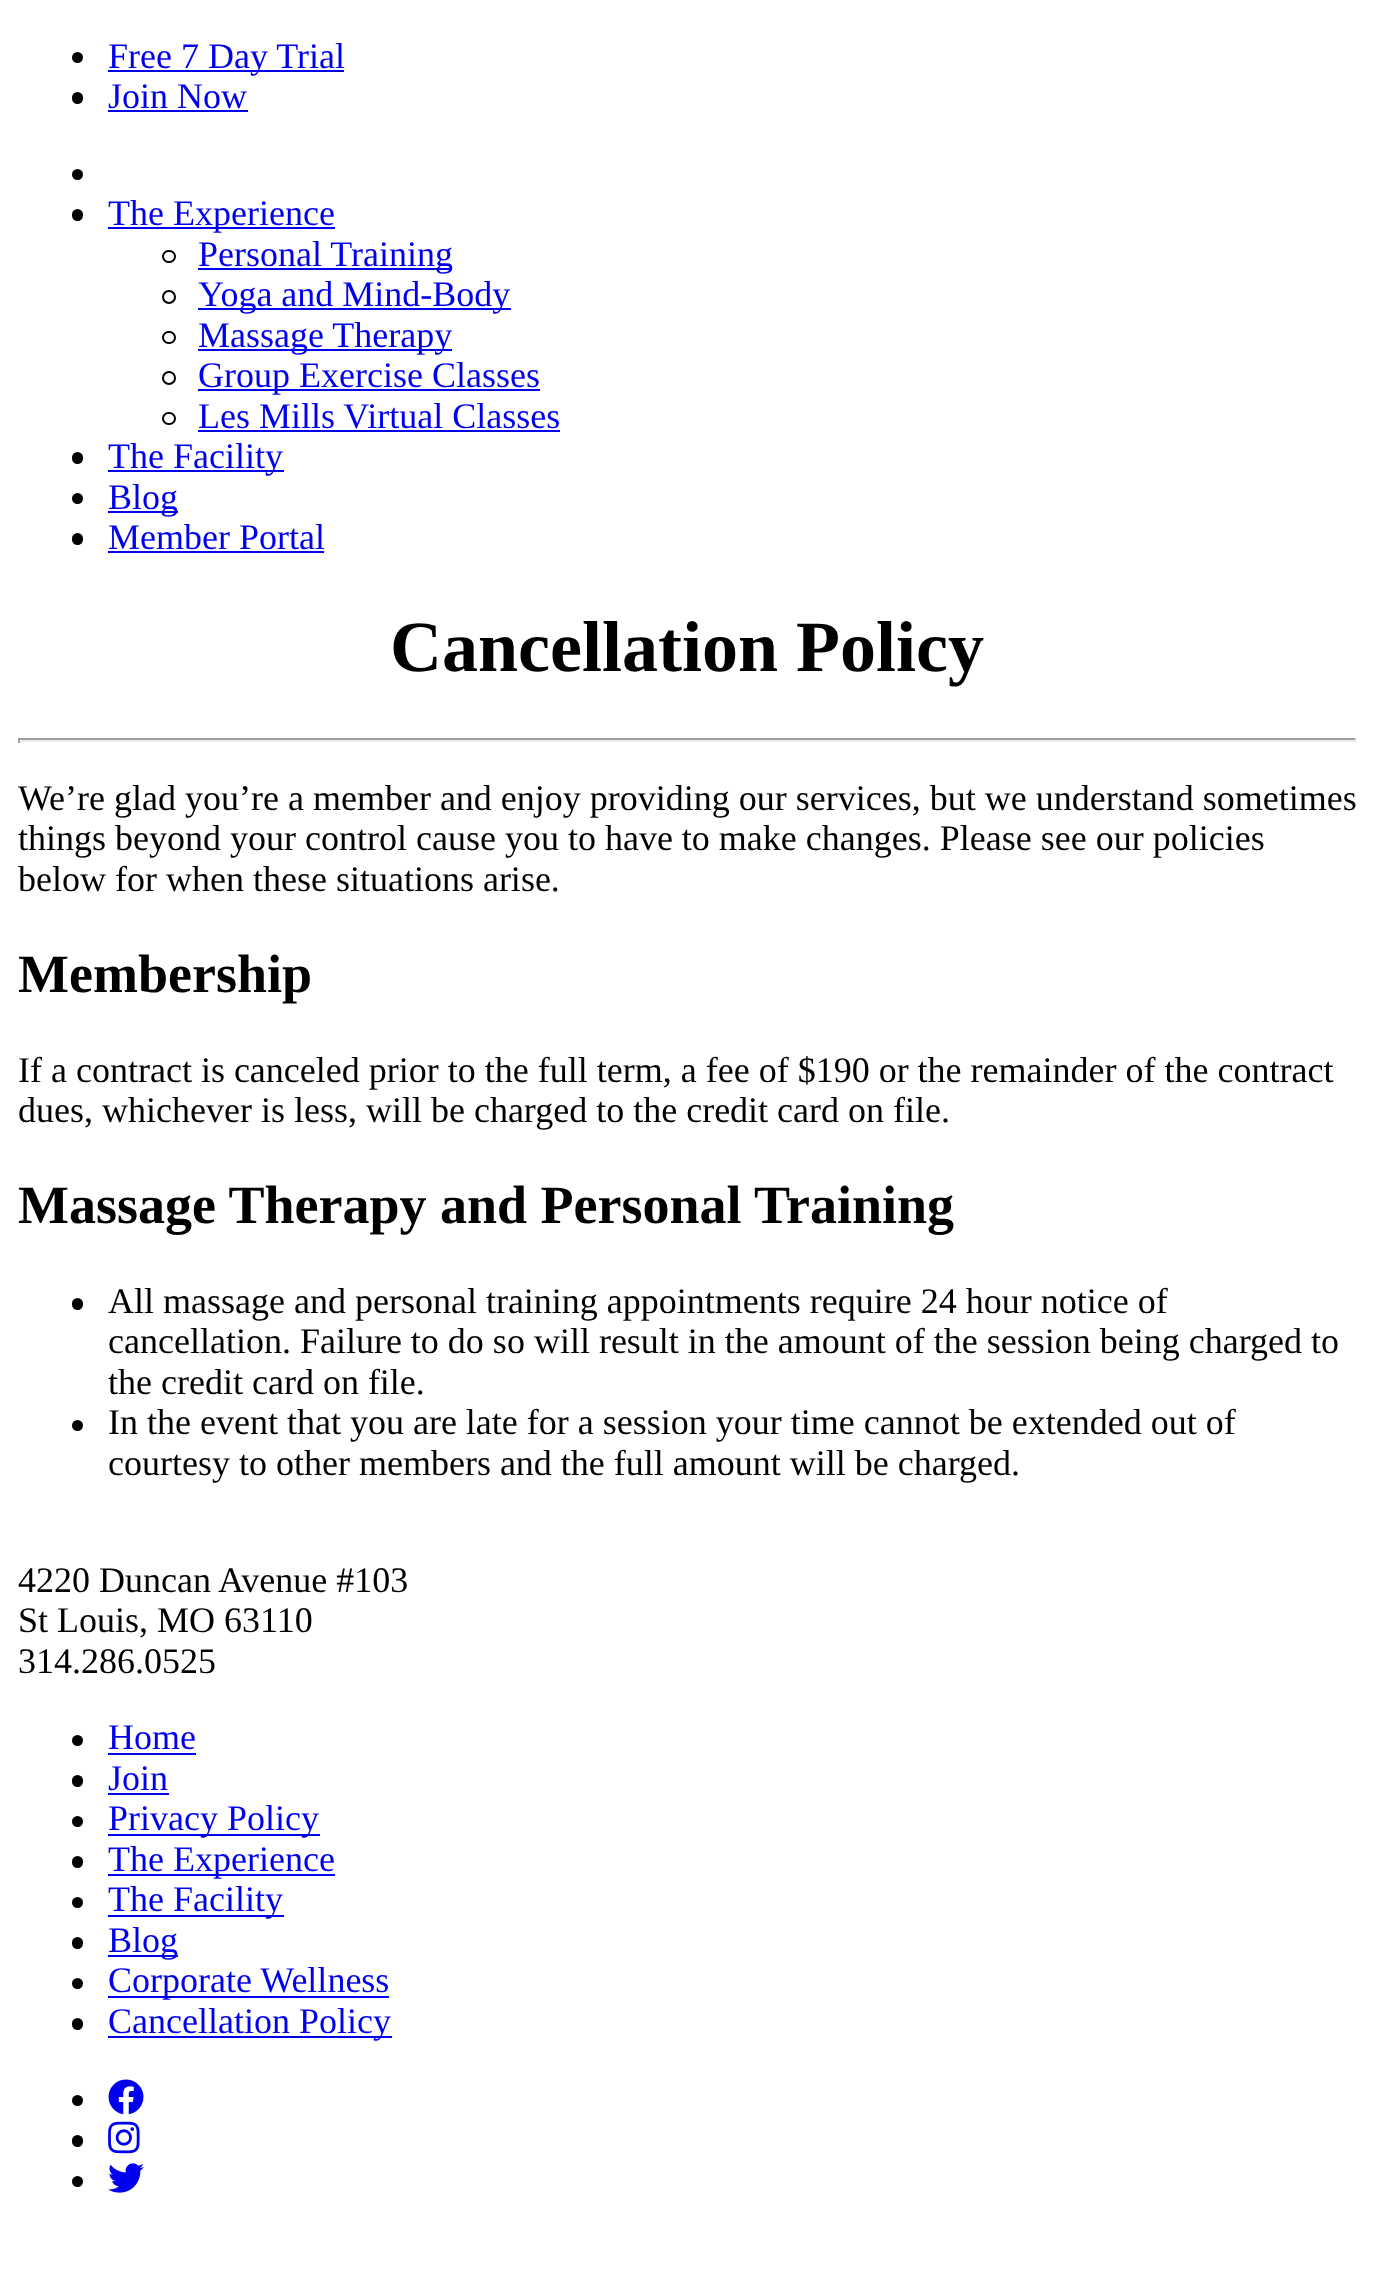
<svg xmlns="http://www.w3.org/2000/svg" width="1373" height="2293">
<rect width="100%" height="100%" fill="#fff"/>
<circle cx="77.5" cy="57.5" r="5.5" fill="#000"/>
<rect x="108" y="70" width="236" height="2" fill="#00e"/>
<text x="108" y="68" style="font-family:Liberation Serif;font-size:36px;fill:#00e">Free 7 Day Trial</text>
<rect x="72" y="92" width="11" height="12" rx="5.5" fill="#000"/>
<text x="108" y="108" style="font-family:Liberation Serif;font-size:36px;fill:#00e">Join Now</text>
<rect x="108" y="110" width="140" height="2" fill="#00e"/>
<circle cx="77.5" cy="174.5" r="5.5" fill="#000"/>
<rect x="72" y="209" width="11" height="12" rx="5.5" fill="#000"/>
<rect x="108" y="227" width="227" height="2" fill="#00e"/>
<text x="108" y="225" style="font-family:Liberation Serif;font-size:36px;fill:#00e">The Experience</text>
<rect x="163" y="251" width="12" height="11" rx="5.5" fill="none" stroke="#000" stroke-width="2"/>
<rect x="198" y="268" width="254" height="2" fill="#00e"/>
<text x="198" y="266" style="font-family:Liberation Serif;font-size:36px;fill:#00e">Personal Training</text>
<circle cx="169" cy="297" r="6" fill="none" stroke="#000" stroke-width="2"/>
<rect x="198" y="308" width="313" height="2" fill="#00e"/>
<text x="198" y="306" style="font-family:Liberation Serif;font-size:36px;fill:#00e">Yoga and Mind-Body</text>
<rect x="163" y="332" width="12" height="11" rx="5.5" fill="none" stroke="#000" stroke-width="2"/>
<rect x="198" y="349" width="254" height="2" fill="#00e"/>
<text x="198" y="347" style="font-family:Liberation Serif;font-size:36px;fill:#00e">Massage Therapy</text>
<circle cx="169" cy="378" r="6" fill="none" stroke="#000" stroke-width="2"/>
<rect x="198" y="389" width="342" height="2" fill="#00e"/>
<text x="198" y="387" style="font-family:Liberation Serif;font-size:36px;fill:#00e">Group Exercise Classes</text>
<rect x="163" y="413" width="12" height="11" rx="5.5" fill="none" stroke="#000" stroke-width="2"/>
<text x="198" y="428" style="font-family:Liberation Serif;font-size:36px;fill:#00e">Les Mills Virtual Classes</text>
<rect x="198" y="430" width="362" height="2" fill="#00e"/>
<rect x="72" y="452" width="11" height="12" rx="5.5" fill="#000"/>
<rect x="108" y="470" width="176" height="2" fill="#00e"/>
<text x="108" y="468" style="font-family:Liberation Serif;font-size:36px;fill:#00e">The Facility</text>
<circle cx="77.5" cy="498.5" r="5.5" fill="#000"/>
<rect x="108" y="511" width="70" height="2" fill="#00e"/>
<text x="108" y="509" style="font-family:Liberation Serif;font-size:36px;fill:#00e">Blog</text>
<rect x="72" y="533" width="11" height="12" rx="5.5" fill="#000"/>
<text x="108" y="549" style="font-family:Liberation Serif;font-size:36px;fill:#00e">Member Portal</text>
<rect x="108" y="551" width="216" height="2" fill="#00e"/>
<text x="390" y="671" style="font-family:Liberation Serif;font-size:72px;font-weight:bold;fill:#000">Cancellation Policy</text>
<rect x="18" y="738" width="1339" height="2" fill="#9f9f9f"/>
<rect x="1355" y="738" width="2" height="5" fill="#eee"/>
<rect x="18" y="740" width="1339" height="2" fill="#eee"/>
<rect x="18" y="738" width="2" height="5" fill="#9f9f9f"/>
<text x="18" y="810" style="font-family:Liberation Serif;font-size:36px;fill:#000">We’re glad you’re a member and enjoy providing our services, but we understand sometimes</text>
<text x="18" y="850" style="font-family:Liberation Serif;font-size:36px;fill:#000">things beyond your control cause you to have to make changes. Please see our policies</text>
<text x="18" y="891" style="font-family:Liberation Serif;font-size:36px;fill:#000">below for when these situations arise.</text>
<text x="18" y="992" style="font-family:Liberation Serif;font-size:54px;font-weight:bold;fill:#000">Membership</text>
<text x="18" y="1082" style="font-family:Liberation Serif;font-size:36px;fill:#000">If a contract is canceled prior to the full term, a fee of $190 or the remainder of the contract</text>
<text x="18" y="1122" style="font-family:Liberation Serif;font-size:36px;fill:#000">dues, whichever is less, will be charged to the credit card on file.</text>
<text x="18" y="1223" style="font-family:Liberation Serif;font-size:54px;font-weight:bold;fill:#000">Massage Therapy and Personal Training</text>
<rect x="72" y="1298" width="11" height="12" rx="5.5" fill="#000"/>
<text x="108" y="1313" style="font-family:Liberation Serif;font-size:36px;fill:#000">All massage and personal training appointments require 24 hour notice of</text>
<text x="108" y="1353" style="font-family:Liberation Serif;font-size:36px;fill:#000">cancellation. Failure to do so will result in the amount of the session being charged to</text>
<text x="108" y="1394" style="font-family:Liberation Serif;font-size:36px;fill:#000">the credit card on file.</text>
<circle cx="77.5" cy="1425.5" r="5.5" fill="#000"/>
<text x="108" y="1434" style="font-family:Liberation Serif;font-size:36px;fill:#000">In the event that you are late for a session your time cannot be extended out of</text>
<text x="108" y="1475" style="font-family:Liberation Serif;font-size:36px;fill:#000">courtesy to other members and the full amount will be charged.</text>
<text x="18" y="1592" style="font-family:Liberation Serif;font-size:36px;fill:#000">4220 Duncan Avenue #103</text>
<text x="18" y="1632" style="font-family:Liberation Serif;font-size:36px;fill:#000">St Louis, MO 63110</text>
<text x="18" y="1673" style="font-family:Liberation Serif;font-size:36px;fill:#000">314.286.0525</text>
<circle cx="77.5" cy="1740.5" r="5.5" fill="#000"/>
<text x="108" y="1749" style="font-family:Liberation Serif;font-size:36px;fill:#00e">Home</text>
<rect x="108" y="1753" width="88" height="2" fill="#00e"/>
<rect x="72" y="1775" width="11" height="12" rx="5.5" fill="#000"/>
<text x="108" y="1790" style="font-family:Liberation Serif;font-size:36px;fill:#00e">Join</text>
<rect x="108" y="1793" width="61" height="2" fill="#00e"/>
<circle cx="77.5" cy="1821.5" r="5.5" fill="#000"/>
<rect x="108" y="1834" width="212" height="2" fill="#00e"/>
<text x="108" y="1830" style="font-family:Liberation Serif;font-size:36px;fill:#00e">Privacy Policy</text>
<rect x="72" y="1856" width="11" height="12" rx="5.5" fill="#000"/>
<rect x="108" y="1874" width="227" height="2" fill="#00e"/>
<text x="108" y="1871" style="font-family:Liberation Serif;font-size:36px;fill:#00e">The Experience</text>
<circle cx="77.5" cy="1902.5" r="5.5" fill="#000"/>
<rect x="108" y="1915" width="176" height="2" fill="#00e"/>
<text x="108" y="1911" style="font-family:Liberation Serif;font-size:36px;fill:#00e">The Facility</text>
<rect x="72" y="1937" width="11" height="12" rx="5.5" fill="#000"/>
<rect x="108" y="1955" width="70" height="2" fill="#00e"/>
<text x="108" y="1952" style="font-family:Liberation Serif;font-size:36px;fill:#00e">Blog</text>
<circle cx="77.5" cy="1983.5" r="5.5" fill="#000"/>
<rect x="108" y="1996" width="281" height="2" fill="#00e"/>
<text x="108" y="1992" style="font-family:Liberation Serif;font-size:36px;fill:#00e">Corporate Wellness</text>
<rect x="72" y="2018" width="11" height="12" rx="5.5" fill="#000"/>
<rect x="108" y="2036" width="284" height="2" fill="#00e"/>
<text x="108" y="2033" style="font-family:Liberation Serif;font-size:36px;fill:#00e">Cancellation Policy</text>
<circle cx="77.5" cy="2100.5" r="5.5" fill="#000"/>
<image x="108" y="2079" width="36" height="36" href="media/1.png"/>
<rect x="72" y="2135" width="11" height="12" rx="5.5" fill="#000"/>
<image x="108" y="2121" width="32" height="33" href="media/2.png"/>
<circle cx="77.5" cy="2181.5" r="5.5" fill="#000"/>
<image x="108" y="2163" width="36" height="30" href="media/3.png"/>
</svg>
